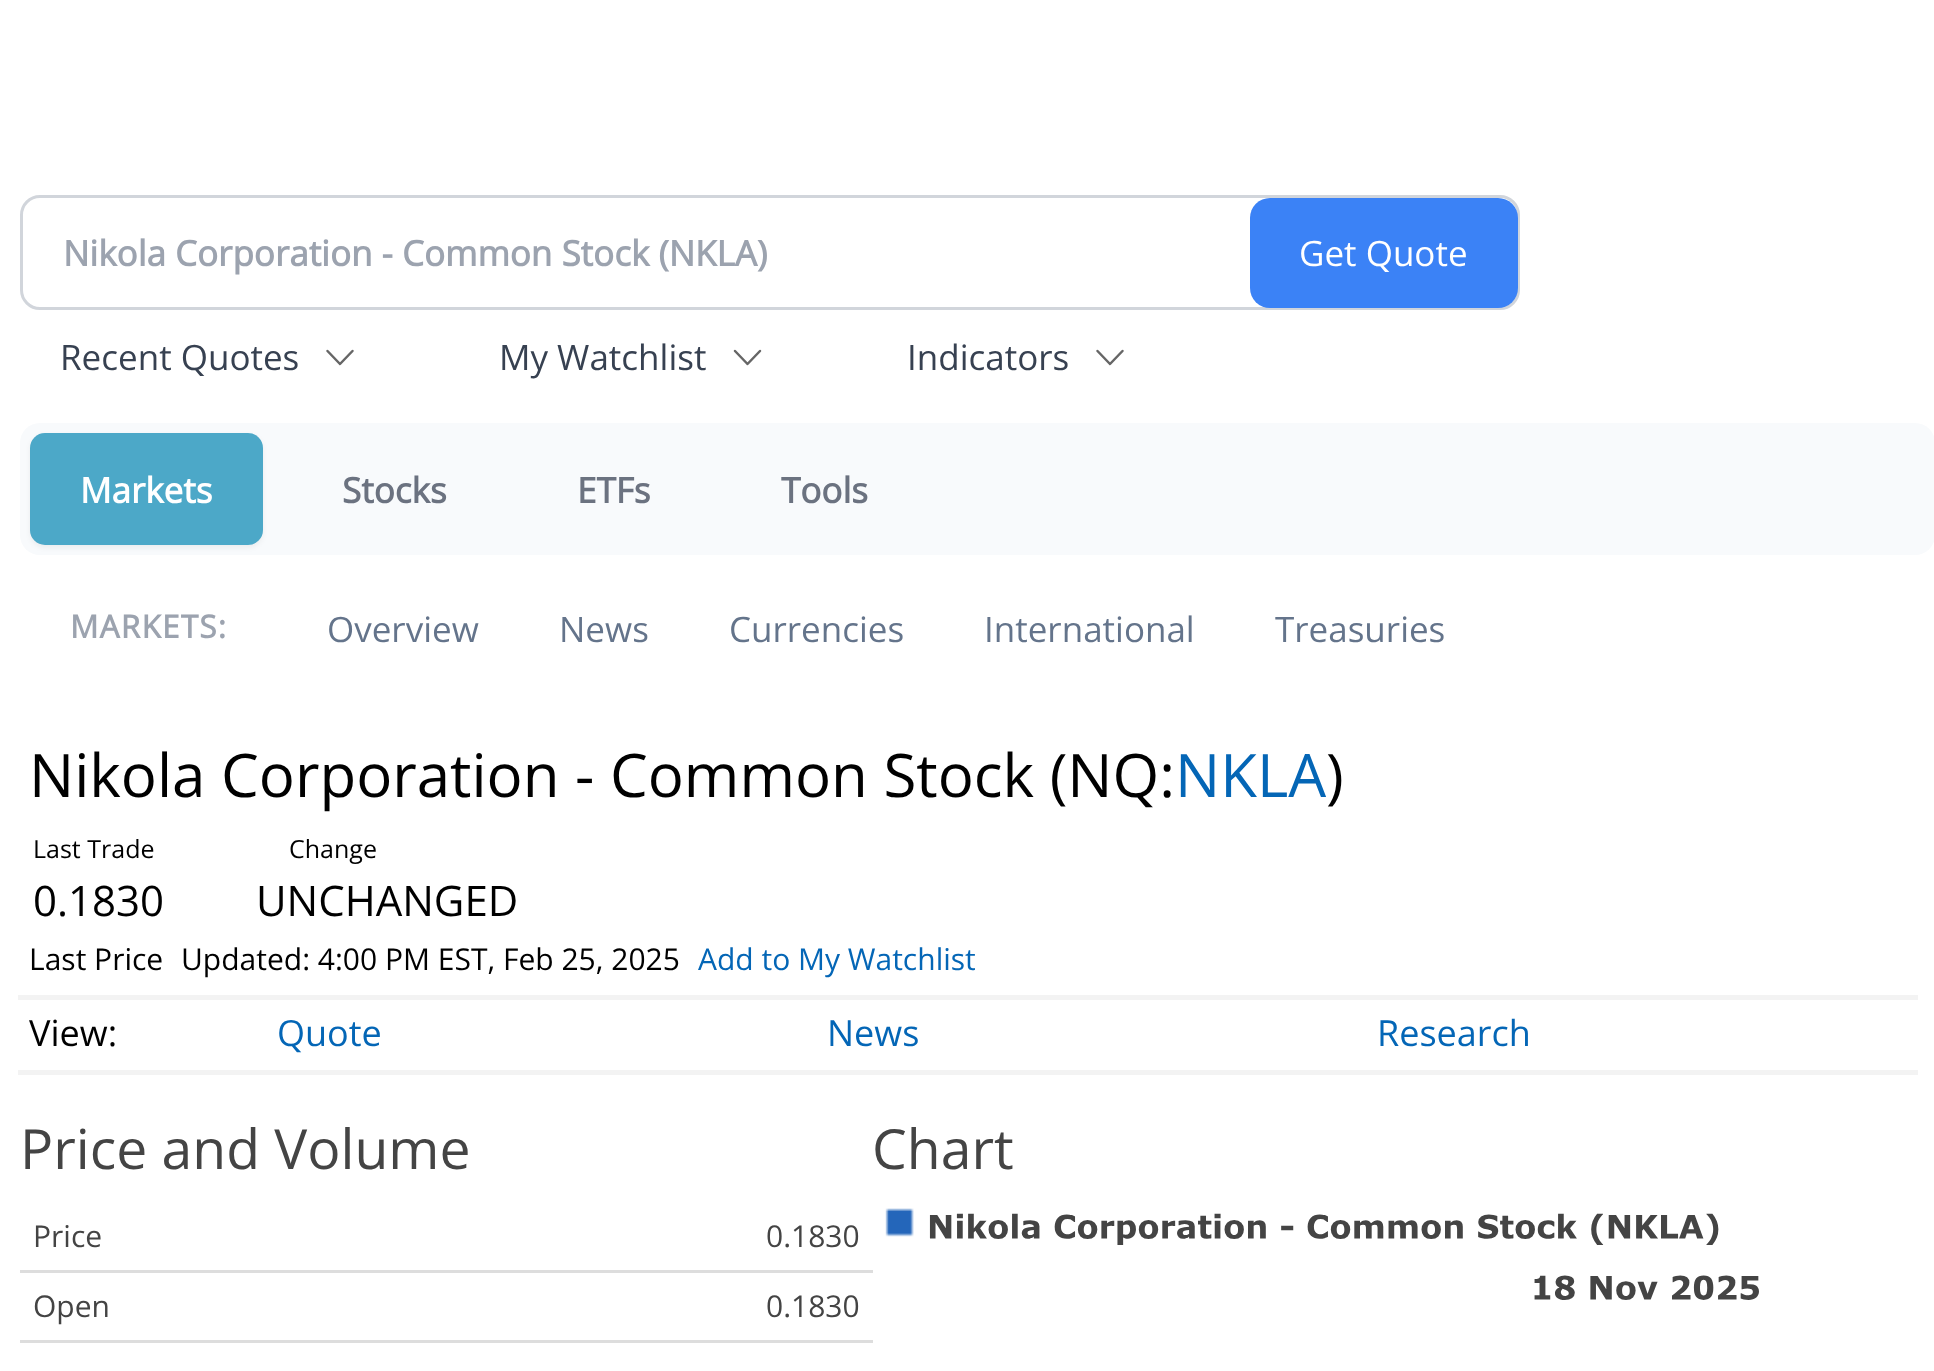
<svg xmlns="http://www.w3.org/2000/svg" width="1934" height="1371">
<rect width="100%" height="100%" fill="#fff"/>
<rect x="21.5" y="196.5" width="1497" height="112" rx="18.5" fill="none" stroke="#d1d5db" stroke-width="3"/>
<text x="63" y="266" style="font-family:Open Sans;font-size:35px;font-weight:bold;fill:#9ca3af">Nikola Corporation - Common Stock (NKLA)</text>
<rect x="1250" y="198" width="268" height="110" rx="20" fill="#3b82f6"/>
<text x="1299" y="266" style="font-family:Open Sans;font-size:35px;fill:#fff">Get Quote</text>
<text x="60" y="370" style="font-family:Open Sans;font-size:35px;fill:#374151">Recent Quotes</text>
<path d="M352.5 351l-12.5 13l-12.5-13" fill="none" stroke="#666" stroke-width="2.5" stroke-linecap="round" stroke-linejoin="round"/>
<text x="499" y="370" style="font-family:Open Sans;font-size:35px;fill:#374151">My Watchlist</text>
<path d="M760 351l-12.5 13l-12.5-13" fill="none" stroke="#666" stroke-width="2.5" stroke-linecap="round" stroke-linejoin="round"/>
<text x="907" y="370" style="font-family:Open Sans;font-size:35px;fill:#374151">Indicators</text>
<path d="M1122.5 351l-12.5 13l-12.5-13" fill="none" stroke="#666" stroke-width="2.5" stroke-linecap="round" stroke-linejoin="round"/>
<rect x="20" y="423" width="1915" height="132" rx="20" fill="#f8fafc"/>
<rect x="30" y="435" width="233" height="113" rx="15" fill="#0000000d" filter="blur(2.5px)"/>
<rect x="30" y="433" width="233" height="112" rx="15" fill="#4ca8c8"/>
<text x="80" y="503" style="font-family:Open Sans;font-size:35px;font-weight:bold;fill:#fff">Markets</text>
<text x="342" y="503" style="font-family:Open Sans;font-size:35px;font-weight:bold;fill:#6b7280">Stocks</text>
<text x="577" y="503" style="font-family:Open Sans;font-size:35px;font-weight:bold;fill:#6b7280">ETFs</text>
<text x="781" y="503" style="font-family:Open Sans;font-size:35px;font-weight:bold;fill:#6b7280">Tools</text>
<text x="70" y="638" style="font-family:Open Sans;font-size:31.5px;font-weight:bold;letter-spacing:1.25px;fill:#9ca3af">MARKETS:</text>
<text x="327" y="642" style="font-family:Open Sans;font-size:35px;fill:#64748b">Overview</text>
<text x="559" y="642" style="font-family:Open Sans;font-size:35px;fill:#64748b">News</text>
<text x="729" y="642" style="font-family:Open Sans;font-size:35px;fill:#64748b">Currencies</text>
<text x="984" y="642" style="font-family:Open Sans;font-size:35px;fill:#64748b">International</text>
<text x="1275" y="642" style="font-family:Open Sans;font-size:35px;fill:#64748b">Treasuries</text>
<text x="29" y="797" style="font-family:Open Sans;font-size:60px;fill:#000">Nikola Corporation - Common Stock (NQ:</text>
<text x="1175" y="797" style="font-family:Open Sans;font-size:60px;fill:#0466b6">NKLA</text>
<text x="1326" y="797" style="font-family:Open Sans;font-size:60px;fill:#000">)</text>
<text x="33" y="858" style="font-family:Open Sans;font-size:25px;fill:#000">Last Trade</text>
<text x="33" y="916" style="font-family:Open Sans;font-size:42px;fill:#000">0.1830</text>
<text x="289" y="858" style="font-family:Open Sans;font-size:25px;fill:#000">Change</text>
<text x="256" y="916" style="font-family:Open Sans;font-size:42px;fill:#000">UNCHANGED</text>
<text x="29" y="970" style="font-family:Open Sans;font-size:30px;fill:#000">Last Price</text>
<text x="181" y="970" style="font-family:Open Sans;font-size:30px;fill:#000">Updated: 4:00 PM EST, Feb 25, 2025</text>
<text x="698" y="970" style="font-family:Open Sans;font-size:30px;fill:#0466b6">Add to My Watchlist</text>
<rect x="18" y="995" width="1900" height="5" fill="#f3f3f3"/>
<rect x="18" y="1070" width="1900" height="5" fill="#f3f3f3"/>
<text x="29" y="1046" style="font-family:Open Sans;font-size:36px;fill:#000">View:</text>
<text x="277" y="1046" style="font-family:Open Sans;font-size:36px;fill:#0466b6">Quote</text>
<text x="827" y="1046" style="font-family:Open Sans;font-size:36px;fill:#0466b6">News</text>
<text x="1377" y="1046" style="font-family:Open Sans;font-size:36px;fill:#0466b6">Research</text>
<text x="20" y="1169" style="font-family:Open Sans;font-size:55.25px;fill:#444">Price and Volume</text>
<rect x="20" y="1270" width="853" height="3" fill="#ddd"/>
<text x="33" y="1247" style="font-family:Open Sans;font-size:30px;fill:#444">Price</text>
<text x="766" y="1247" style="font-family:Open Sans;font-size:30px;fill:#444">0.1830</text>
<rect x="20" y="1340" width="853" height="3" fill="#ddd"/>
<text x="33" y="1317" style="font-family:Open Sans;font-size:30px;fill:#444">Open</text>
<text x="766" y="1317" style="font-family:Open Sans;font-size:30px;fill:#444">0.1830</text>
<text x="872" y="1169" style="font-family:Open Sans;font-size:55.25px;fill:#444">Chart</text>
<image x="885" y="1208" width="874" height="92" href="media/1.png"/>
</svg>
